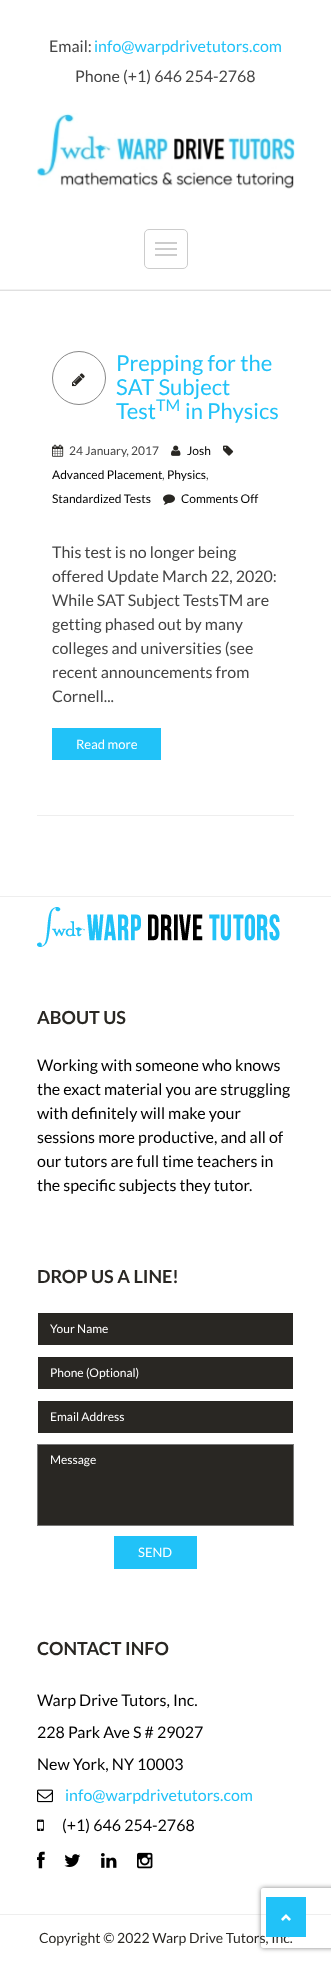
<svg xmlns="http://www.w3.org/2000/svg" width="331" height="1962">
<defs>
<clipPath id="clip1"><path d="M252 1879h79v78h-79zm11 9h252c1 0 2 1 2 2v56c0 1-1 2-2 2h-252c-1 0-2-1-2-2v-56c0-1 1-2 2-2z" clip-rule="evenodd"/></clipPath>
</defs>
<rect width="100%" height="100%" fill="#fff"/>
<rect y="289" width="331" height="1" fill="#f2f2f2"/>
<text x="49" y="52" style="font-family:Lato;font-size:16px;fill:#444">Email:</text>
<text x="94" y="52" style="font-family:Lato;font-size:16px;fill:#21c2f8">info@warpdrivetutors.com</text>
<text x="75" y="82" style="font-family:Lato;font-size:16px;fill:#444">Phone (+1) 646 254-2768</text>
<image x="37" y="113" width="258" height="76" href="media/1.png"/>
<rect x="144.5" y="229.5" width="43" height="39" rx="4.5" fill="none" stroke="#ccc"/>
<rect x="155" y="242" width="22" height="2" fill="#ccc"/>
<rect x="155" y="248" width="22" height="2" fill="#ccc"/>
<rect x="155" y="254" width="22" height="2" fill="#ccc"/>
<rect y="290" width="331" height="1" fill="#e0e0e0"/>
<circle cx="79" cy="378" r="26.5" fill="none" stroke="#888"/>
<image x="72" y="373" width="13" height="14" href="media/2.png"/>
<text x="116" y="371" style="font-family:Lato;font-size:22px;fill:#21c2f8">Prepping for the</text>
<text x="116" y="395" style="font-family:Lato;font-size:22px;fill:#21c2f8">SAT Subject</text>
<text x="116" y="419" style="font-family:Lato;font-size:22px;fill:#21c2f8">Test</text>
<text x="156" y="411" style="font-family:Lato;font-size:16px;fill:#21c2f8">TM</text>
<text x="185" y="419" style="font-family:Lato;font-size:22px;fill:#21c2f8">in Physics</text>
<image x="52" y="444" width="12" height="13" href="media/3.png"/>
<text x="69" y="455" style="font-family:Lato;font-size:12px;fill:#444">24 January, 2017</text>
<image x="171" y="445" width="10" height="11" href="media/4.png"/>
<text x="187" y="455" style="font-family:Lato;font-size:12px;fill:#000">Josh</text>
<image x="223" y="445" width="11" height="11" href="media/5.png"/>
<text x="52" y="479" style="font-family:Lato;font-size:12px;fill:#000">Advanced Placement</text>
<text x="162" y="479" style="font-family:Lato;font-size:12px;fill:#444">,</text>
<text x="167" y="479" style="font-family:Lato;font-size:12px;fill:#000">Physics</text>
<text x="206" y="479" style="font-family:Lato;font-size:12px;fill:#444">,</text>
<text x="52" y="503" style="font-family:Lato;font-size:12px;fill:#000">Standardized Tests</text>
<image x="163" y="494" width="12" height="11" href="media/6.png"/>
<text x="181" y="503" style="font-family:Lato;font-size:12px;fill:#000">Comments Off</text>
<text x="52" y="558" style="font-family:Lato;font-size:16px;fill:#444">This test is no longer being</text>
<text x="52" y="582" style="font-family:Lato;font-size:16px;fill:#444">offered Update March 22, 2020:</text>
<text x="52" y="606" style="font-family:Lato;font-size:16px;fill:#444">While SAT Subject TestsTM are</text>
<text x="52" y="630" style="font-family:Lato;font-size:16px;fill:#444">getting phased out by many</text>
<text x="52" y="654" style="font-family:Lato;font-size:16px;fill:#444">colleges and universities (see</text>
<text x="52" y="678" style="font-family:Lato;font-size:16px;fill:#444">recent announcements from</text>
<text x="52" y="702" style="font-family:Lato;font-size:16px;fill:#444">Cornell...</text>
<rect x="52" y="728" width="109" height="32" fill="#21c2f8"/>
<text x="76" y="749" style="font-family:Lato;font-size:13px;fill:#fff">Read more</text>
<rect x="37" y="815" width="257" height="1" fill="#eee"/>
<rect y="896" width="331" height="1" fill="#eee"/>
<image x="37" y="907" width="243" height="40" href="media/7.png"/>
<text x="37" y="1024" style="font-family:Lato;font-size:18px;font-weight:bold;fill:#292723">ABOUT US</text>
<text x="37" y="1071" style="font-family:Lato;font-size:16px;fill:#000">Working with someone who knows</text>
<text x="37" y="1095" style="font-family:Lato;font-size:16px;fill:#000">the exact material you are struggling</text>
<text x="37" y="1119" style="font-family:Lato;font-size:16px;fill:#000">with definitely will make your</text>
<text x="37" y="1143" style="font-family:Lato;font-size:16px;fill:#000">sessions more productive, and all of</text>
<text x="37" y="1167" style="font-family:Lato;font-size:16px;fill:#000">our tutors are full time teachers in</text>
<text x="37" y="1191" style="font-family:Lato;font-size:16px;fill:#000">the specific subjects they tutor.</text>
<text x="37" y="1283" style="font-family:Lato;font-size:18px;font-weight:bold;fill:#292723">DROP US A LINE!</text>
<rect x="38" y="1314" width="255" height="31" fill="#292723"/>
<rect x="38" y="1313" width="255" height="1" fill="#262420"/>
<text x="50" y="1333" style="font-family:Lato;font-size:12px;fill:#fff">Your Name</text>
<rect x="38" y="1358" width="255" height="31" fill="#292723"/>
<rect x="38" y="1357" width="255" height="1" fill="#262420"/>
<text x="50" y="1377" style="font-family:Lato;font-size:12px;fill:#fff">Phone (Optional)</text>
<rect x="38" y="1402" width="255" height="31" fill="#292723"/>
<rect x="38" y="1401" width="255" height="1" fill="#262420"/>
<text x="50" y="1421" style="font-family:Lato;font-size:12px;fill:#fff">Email Address</text>
<rect x="38" y="1446" width="255" height="79" fill="#292723"/>
<rect x="38" y="1445" width="255" height="1" fill="#262420"/>
<rect x="37.5" y="1444.5" width="256" height="81" fill="none" stroke="#777"/>
<text x="50" y="1464" style="font-family:Lato;font-size:12px;fill:#fff">Message</text>
<rect x="114" y="1536" width="83" height="33" fill="#21c2f8"/>
<text x="138" y="1557" style="font-family:Lato;font-size:13px;fill:#fff">SEND</text>
<rect y="1914" width="331" height="1" fill="#eee"/>
<g clip-path="url(#clip1)">
<rect x="261" y="1888" width="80" height="60" rx="2" fill="#808080" filter="blur(2.5px)"/>
</g>
<text x="37" y="1655" style="font-family:Lato;font-size:18px;font-weight:bold;fill:#292723">CONTACT INFO</text>
<text x="37" y="1706" style="font-family:Lato;font-size:16px;fill:#000">Warp Drive Tutors, Inc.</text>
<text x="37" y="1738" style="font-family:Lato;font-size:16px;fill:#000">228 Park Ave S # 29027</text>
<text x="37" y="1770" style="font-family:Lato;font-size:16px;fill:#000">New York, NY 10003</text>
<image x="37" y="1789" width="16" height="14" href="media/8.png"/>
<text x="65" y="1801" style="font-family:Lato;font-size:16px;fill:#21c2f8">info@warpdrivetutors.com</text>
<image x="37" y="1819" width="7" height="12" href="media/9.png"/>
<text x="62" y="1831" style="font-family:Lato;font-size:16px;fill:#000">(+1) 646 254-2768</text>
<image x="37" y="1851" width="8" height="18" href="media/10.png"/>
<image x="64" y="1854" width="17" height="13" href="media/11.png"/>
<image x="101" y="1853" width="16" height="15" href="media/12.png"/>
<image x="137" y="1852" width="16" height="17" href="media/13.png"/>
<text x="39" y="1943" style="font-family:Lato;font-size:14px;fill:#292723">Copyright © 2022 Warp Drive Tutors, Inc.</text>
<rect x="266" y="1897" width="40" height="40" fill="#21c2f8"/>
<image x="281" y="1914" width="10" height="7" href="media/14.png"/>
</svg>
